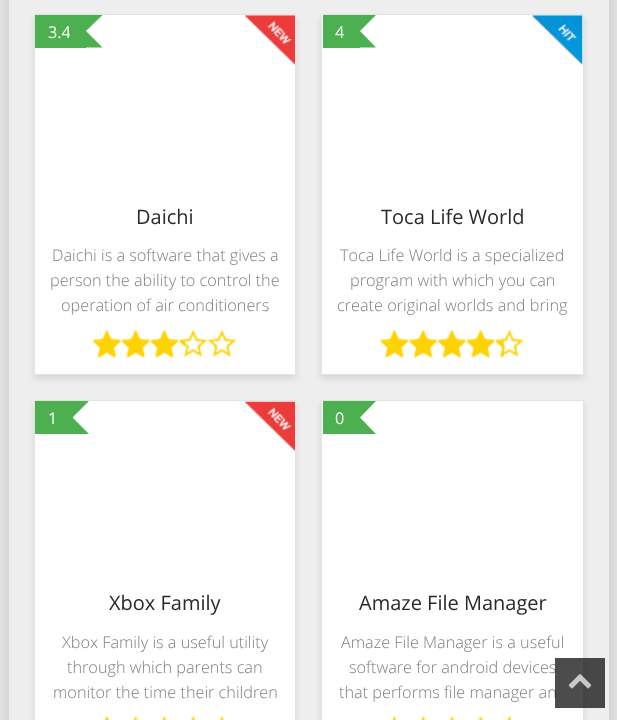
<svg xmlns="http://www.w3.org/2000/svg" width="617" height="720">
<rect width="100%" height="100%" fill="#eee"/>
<rect x="9" y="-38" width="600" height="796" fill="#00000033" filter="blur(12.5px)"/>
<rect x="9" width="600" height="720" fill="#eee"/>
<rect x="34" y="18" width="262" height="361" fill="#0001011a" filter="blur(3px)"/>
<rect x="34.5" y="14.5" width="261" height="360" fill="#fff" stroke="#e3e3e3"/>
<rect x="35" y="15" width="35" height="33" fill="#4caf50"/>
<text x="48" y="38" style="font-family:Open Sans;font-size:16.25px;fill:#fff">3.4</text>
<path d="M70 15h32.5l-16.5 16zm32.5 32.5h-32.5l16-16.5z" fill="#4caf50"/>
<rect x="70" y="15" width="16" height="33" fill="#4caf50"/>
<image x="245" y="15" width="50" height="51" href="media/1.png"/>
<text x="136" y="224" style="font-family:Open Sans;font-size:20px;fill:#2a2a2a">Daichi</text>
<text x="52" y="261" style="font-family:Open Sans;font-size:16.25px;font-weight:300;fill:#7f7f7f">Daichi is a software that gives a</text>
<text x="50" y="286" style="font-family:Open Sans;font-size:16.25px;font-weight:300;fill:#7f7f7f">person the ability to control the</text>
<text x="61" y="311" style="font-family:Open Sans;font-size:16.25px;font-weight:300;fill:#7f7f7f">operation of air conditioners</text>
<image x="92" y="330" width="145" height="27" href="media/2.png"/>
<image x="92" y="331" width="93" height="27" href="media/3.png"/>
<rect x="321" y="18" width="263" height="361" fill="#0001011a" filter="blur(3px)"/>
<rect x="321.5" y="14.5" width="262" height="360" fill="#fff" stroke="#e3e3e3"/>
<rect x="323" y="15" width="21" height="33" fill="#4caf50"/>
<text x="335" y="38" style="font-family:Open Sans;font-size:16.25px;fill:#fff">4</text>
<path d="M344 15h32l-16 16zm32 32.5h-32l16-16.5z" fill="#4caf50"/>
<rect x="344" y="15" width="16" height="33" fill="#4caf50"/>
<image x="532" y="15" width="51" height="51" href="media/4.png"/>
<text x="381" y="224" style="font-family:Open Sans;font-size:20px;fill:#2a2a2a">Toca Life World</text>
<text x="340" y="261" style="font-family:Open Sans;font-size:16.25px;font-weight:300;fill:#7f7f7f">Toca Life World is a specialized</text>
<text x="350" y="286" style="font-family:Open Sans;font-size:16.25px;font-weight:300;fill:#7f7f7f">program with which you can</text>
<text x="337" y="311" style="font-family:Open Sans;font-size:16.25px;font-weight:300;fill:#7f7f7f">create original worlds and bring</text>
<image x="380" y="330" width="144" height="27" href="media/5.png"/>
<image x="380" y="331" width="124" height="27" href="media/6.png"/>
<rect x="34" y="404" width="262" height="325" fill="#0001011a" filter="blur(3px)"/>
<rect x="34.5" y="400.5" width="261" height="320" fill="#fff" stroke="#e3e3e3"/>
<rect x="35" y="401" width="21" height="33" fill="#4caf50"/>
<text x="48" y="424" style="font-family:Open Sans;font-size:16.25px;fill:#fff">1</text>
<path d="M56 401h33l-16.5 16.5z" fill="#4caf50"/>
<path d="M89 434h-33l16.5-16.5z" fill="#4caf50"/>
<rect x="56" y="401" width="17" height="33" fill="#4caf50"/>
<image x="245" y="401" width="50" height="51" href="media/7.png"/>
<text x="109" y="610" style="font-family:Open Sans;font-size:20px;fill:#2a2a2a">Xbox Family</text>
<text x="62" y="648" style="font-family:Open Sans;font-size:16.25px;font-weight:300;fill:#7f7f7f">Xbox Family is a useful utility</text>
<text x="67" y="673" style="font-family:Open Sans;font-size:16.25px;font-weight:300;fill:#7f7f7f">through which parents can</text>
<text x="53" y="698" style="font-family:Open Sans;font-size:16.25px;font-weight:300;fill:#7f7f7f">monitor the time their children</text>
<image x="104" y="716" width="120" height="4" href="media/8.png"/>
<image x="105" y="717" width="4" height="3" href="media/9.png"/>
<rect x="321" y="404" width="263" height="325" fill="#0001011a" filter="blur(3px)"/>
<rect x="321.5" y="400.5" width="262" height="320" fill="#fff" stroke="#e3e3e3"/>
<rect x="323" y="401" width="21" height="33" fill="#4caf50"/>
<text x="335" y="424" style="font-family:Open Sans;font-size:16.25px;fill:#fff">0</text>
<path d="M344 401h32l-16 16.5z" fill="#4caf50"/>
<path d="M376 434h-32l16-16.5z" fill="#4caf50"/>
<rect x="344" y="401" width="16" height="33" fill="#4caf50"/>
<text x="359" y="610" style="font-family:Open Sans;font-size:20px;fill:#2a2a2a">Amaze File Manager</text>
<text x="341" y="648" style="font-family:Open Sans;font-size:16.25px;font-weight:300;fill:#7f7f7f">Amaze File Manager is a useful</text>
<text x="349" y="673" style="font-family:Open Sans;font-size:16.25px;font-weight:300;fill:#7f7f7f">software for android devices</text>
<text x="339" y="698" style="font-family:Open Sans;font-size:16.25px;font-weight:300;fill:#7f7f7f">that performs file manager an</text>
<image x="392" y="716" width="120" height="4" href="media/10.png"/>
<rect x="555" y="658" width="50" height="50" fill="#000000b3"/>
<image x="568" y="674" width="24" height="15" href="media/11.png"/>
</svg>
